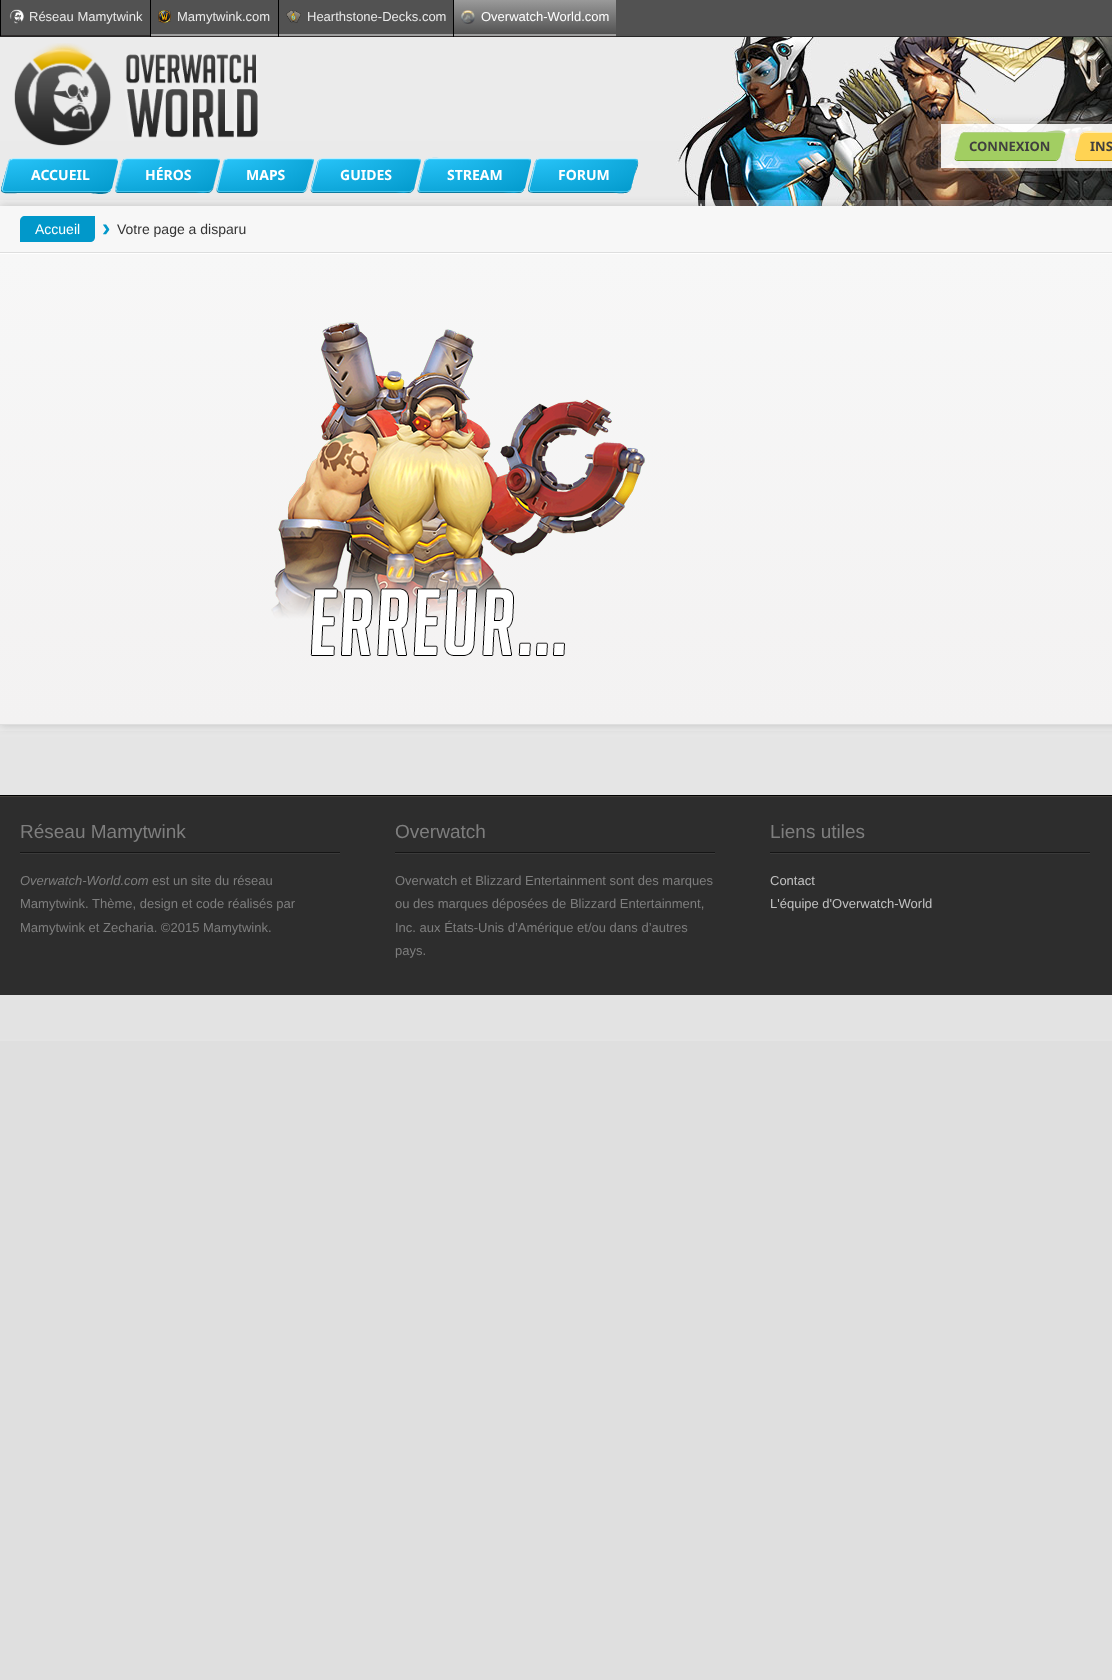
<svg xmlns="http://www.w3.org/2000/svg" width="1112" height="1680">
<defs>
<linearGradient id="g1" gradientUnits="userSpaceOnUse" x1="535" y1="0" x2="535" y2="36"><stop offset="0" stop-color="#9a9a9a"/><stop offset="1" stop-color="#4e4e4e"/></linearGradient>
<clipPath id="clip1"><path d="M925 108h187v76h-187zm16 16h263v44h-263z" clip-rule="evenodd"/></clipPath>
<radialGradient id="g2" gradientUnits="userSpaceOnUse" cx="0" cy="0" r="1" gradientTransform="matrix(171 0 0 58 -109 151)"><stop offset="0" stop-color="#2dcaff"/><stop offset="1" stop-color="#0198ca"/></radialGradient>
<radialGradient id="g3" gradientUnits="userSpaceOnUse" cx="0" cy="0" r="1" gradientTransform="matrix(171 0 0 58 0.1 151)"><stop offset="0" stop-color="#2dcaff"/><stop offset="1" stop-color="#0198ca"/></radialGradient>
<radialGradient id="g4" gradientUnits="userSpaceOnUse" cx="0" cy="0" r="1" gradientTransform="matrix(152 0 0 58 19 151)"><stop offset="0" stop-color="#2dcaff"/><stop offset="1" stop-color="#0198ca"/></radialGradient>
<radialGradient id="g5" gradientUnits="userSpaceOnUse" cx="0" cy="0" r="1" gradientTransform="matrix(152 0 0 58 115 151)"><stop offset="0" stop-color="#2dcaff"/><stop offset="1" stop-color="#0198ca"/></radialGradient>
<radialGradient id="g6" gradientUnits="userSpaceOnUse" cx="0" cy="0" r="1" gradientTransform="matrix(152 0 0 58 107 183)"><stop offset="0" stop-color="#2dcaff"/><stop offset="1" stop-color="#0198ca"/></radialGradient>
<radialGradient id="g7" gradientUnits="userSpaceOnUse" cx="0" cy="0" r="1" gradientTransform="matrix(140 0 0 58 128 151)"><stop offset="0" stop-color="#2dcaff"/><stop offset="1" stop-color="#0198ca"/></radialGradient>
<radialGradient id="g8" gradientUnits="userSpaceOnUse" cx="0" cy="0" r="1" gradientTransform="matrix(140 0 0 58 217 151)"><stop offset="0" stop-color="#2dcaff"/><stop offset="1" stop-color="#0198ca"/></radialGradient>
<radialGradient id="g9" gradientUnits="userSpaceOnUse" cx="0" cy="0" r="1" gradientTransform="matrix(160 0 0 58 208 151)"><stop offset="0" stop-color="#2dcaff"/><stop offset="1" stop-color="#0198ca"/></radialGradient>
<radialGradient id="g10" gradientUnits="userSpaceOnUse" cx="0" cy="0" r="1" gradientTransform="matrix(160 0 0 58 310 151)"><stop offset="0" stop-color="#2dcaff"/><stop offset="1" stop-color="#0198ca"/></radialGradient>
<radialGradient id="g11" gradientUnits="userSpaceOnUse" cx="0" cy="0" r="1" gradientTransform="matrix(160 0 0 58 302 183)"><stop offset="0" stop-color="#2dcaff"/><stop offset="1" stop-color="#0198ca"/></radialGradient>
<radialGradient id="g12" gradientUnits="userSpaceOnUse" cx="0" cy="0" r="1" gradientTransform="matrix(166 0 0 58 311 151)"><stop offset="0" stop-color="#2dcaff"/><stop offset="1" stop-color="#0198ca"/></radialGradient>
<radialGradient id="g13" gradientUnits="userSpaceOnUse" cx="0" cy="0" r="1" gradientTransform="matrix(166 0 0 58 417 151)"><stop offset="0" stop-color="#2dcaff"/><stop offset="1" stop-color="#0198ca"/></radialGradient>
<radialGradient id="g14" gradientUnits="userSpaceOnUse" cx="0" cy="0" r="1" gradientTransform="matrix(166 0 0 58 409 183)"><stop offset="0" stop-color="#2dcaff"/><stop offset="1" stop-color="#0198ca"/></radialGradient>
<radialGradient id="g15" gradientUnits="userSpaceOnUse" cx="0" cy="0" r="1" gradientTransform="matrix(160 0 0 58 426 151)"><stop offset="0" stop-color="#2dcaff"/><stop offset="1" stop-color="#0198ca"/></radialGradient>
<radialGradient id="g16" gradientUnits="userSpaceOnUse" cx="0" cy="0" r="1" gradientTransform="matrix(160 0 0 58 528 151)"><stop offset="0" stop-color="#2dcaff"/><stop offset="1" stop-color="#0198ca"/></radialGradient>
<radialGradient id="g17" gradientUnits="userSpaceOnUse" cx="0" cy="0" r="1" gradientTransform="matrix(160 0 0 58 520 183)"><stop offset="0" stop-color="#2dcaff"/><stop offset="1" stop-color="#0198ca"/></radialGradient>
<linearGradient id="g18" gradientUnits="userSpaceOnUse" x1="0" y1="724" x2="0" y2="254"><stop offset="0" stop-color="#f3f2f2"/><stop offset="1" stop-color="#f7f7f7"/></linearGradient>
</defs>
<rect width="100%" height="100%" fill="#dfdfdf"/>
<image x="0" y="37" width="1112" height="1004" href="media/1.png"/>
<rect x="1" width="1111" height="36" fill="#525252"/>
<rect y="36" width="1112" height="1" fill="#262626"/>
<rect y="35" width="150" height="1" fill="#2f2b2b"/>
<rect width="1" height="36" fill="#000"/>
<image x="9" y="9" width="15" height="15" href="media/2.png"/>
<text x="29" y="21" style="font-family:Liberation Sans;font-size:13px;fill:#e9e9e9">Réseau Mamytwink</text>
<rect x="151" y="34" width="127" height="2" fill="#9e9e9e"/>
<rect x="150" y="36" width="466" height="1" fill="#2f2b2b"/>
<rect x="150" width="1" height="37" fill="#000"/>
<image x="158" y="10" width="13" height="13" href="media/3.png"/>
<text x="177" y="21" style="font-family:Liberation Sans;font-size:13px;fill:#e9e9e9">Mamytwink.com</text>
<rect x="279" y="34" width="174" height="2" fill="#9e9e9e"/>
<rect x="278" width="1" height="37" fill="#000"/>
<image x="286" y="10" width="15" height="13" href="media/4.png"/>
<text x="307" y="21" style="font-family:Liberation Sans;font-size:13px;fill:#e9e9e9">Hearthstone-Decks.com</text>
<rect x="454" width="162" height="33" fill="url(#g1)"/>
<rect x="454" y="34" width="162" height="2" fill="#9d9d9d"/>
<rect x="453" width="1" height="37" fill="#000"/>
<image x="461" y="10" width="14" height="14" href="media/5.png"/>
<text x="481" y="21" style="font-family:Liberation Sans;font-size:13px;fill:#fff">Overwatch-World.com</text>
<image x="14" y="43" width="98" height="103" href="media/6.png"/>
<image x="125" y="54" width="134" height="84" href="media/7.png"/>
<g clip-path="url(#clip1)">
<rect x="941" y="124" width="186" height="44" fill="#3333334f" filter="blur(5px)"/>
</g>
<rect x="941" y="124" width="171" height="44" fill="#ffffffeb"/>
<rect x="939.5" y="122.5" width="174" height="47" fill="none" stroke="#ffffff33" stroke-width="3"/>
<path d="M955 157c-1 2 0 4 3 4h97c2 0 4-2 5-4l5-19l-5 18c0 2-3 4-5 4h-97c-2 0-3-1-3-3zm110-20v-1z" fill="#72a12e" fill-rule="evenodd"/>
<path d="M965 132h97c3 0 4 1 3 4l-5 20c0 2-3 4-5 4h-97c-2 0-4-2-3-4l5-20c1-3 3-4 5-4z" fill="#a2ce62"/>
<path d="M965 133h97c2 0 4 1 3 3c3-9-18-4-19-4h-81c-6 0-7 10-8 14c0 3-3 9-2 11l3-13c1-5 1-11 7-11zm100 4v1z" fill="#b4d08d" fill-rule="evenodd"/>
<text x="969" y="151" style="font-family:Noto Sans;font-size:13px;font-weight:bold;fill:#403f3f">CONNEXION</text>
<path d="M1080 137v1zm-5 20c0 2 0 4 3 4h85c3 0 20 4 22-4c-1 1-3 3-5 3h-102c-2 0-3-2-3-3z" fill="#cc9d10" fill-rule="evenodd"/>
<path d="M1085 132h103c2 0 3 1 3 4l-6 20c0 2-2 4-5 4h-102c-2 0-3-2-3-4l5-20c1-3 3-4 5-4z" fill="#ffd353"/>
<path d="M1085 133h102c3 0 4 1 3 4l-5 20l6-22c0-6-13-3-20-3h-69c-6 0-20-4-22 5c1-3 3-4 5-4zm-10 24l5-19z" fill="#ffedb7" fill-rule="evenodd"/>
<text x="1090" y="151" style="font-family:Noto Sans;font-size:13px;font-weight:bold;fill:#403f3f">INS</text>
<rect y="206" width="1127" height="519" fill="#3333334f" filter="blur(5px)"/>
<path d="M8 163l-7 26c-1 6 10 4 20 4h68c3 0 20 4 22-4c-1 1-3 3-4 3h-102c-2 0-4-2-3-4zm106 13l4-14z" fill="#0b7a9e" fill-rule="evenodd"/>
<path d="M2 190.5c-.5-1-.5-2-.5-3l7-25.5c0-1 .5-2 1.5-2.5z" fill="url(#g2)"/>
<path d="M10 159h107c1 1 1 2 1 3l-6 26c-1 1-2 2-3 3h-106l-1-1z" fill="url(#g3)"/>
<path d="M13 160h102c2 0 3 1 3 2c0-2-1-3-3-3h-102c-2 0-3 1-4 3c1-1 3-2 4-2zm101 16l-3 12z" fill="#4ed3ffa3" fill-rule="evenodd"/>
<path d="M13 158l-3 1l1 1l2-1h102c2 0 3 1 3 3c1-2-1-4-3-4z" fill="#beefff"/>
<path d="M3 192l-1-2h1l2 1h103l3-2c0 1-1 3-2 3z" fill="#41c3ec"/>
<path d="M3 190l-1 .5l-.5-1.5l7-28l1.5-2l.5 1c-.5 .5-1 1-1.5 2l-6 26c-.5 .5-.5 1 0 2z" fill="#9de6ff"/>
<text x="31" y="180" style="font-family:Noto Sans;font-size:14px;font-weight:bold;fill:#fff">ACCUEIL</text>
<path d="M116 184l-1 5c0 2 1 4 3 4h90c2 0 4-2 5-4l4-16l-4 15c-1 2-3 4-5 4h-90c-2 0-3-2-3-4z" fill="#0b7a9e"/>
<path d="M116 190.5c-.5-.5-1-1.5-.5-3l6.5-25.5c.5-1 1-2 2-3z" fill="url(#g4)"/>
<path d="M124 159h95l1 2l-7 27c-1 2-2 2-3 3h-93h-1z" fill="url(#g5)"/>
<path d="M210 191c-5 3-11 1-17 1h-75l-1-1z" fill="url(#g6)"/>
<path d="M126 160h90c2 0 4 1 3 3l-2 10l2-11c1-2-1-3-3-3h-89c-2 0-4 1-4 3l-6 22l6-21c0-2 2-3 3-3z" fill="#4ed3ffa3"/>
<path d="M127 158l-3 1v1l3-1h89c2 0 4 1 3 3c1-2 0-4-2-4z" fill="#beefff"/>
<path d="M116 192v-1l1-1c0 0 1 1 2 1h89c1 0 4-1 4-2l-2 3zm97-3h0z" fill="#41c3ec" fill-rule="evenodd"/>
<path d="M116.5 190l-1 .5l-.5-1.5l4-16c1-4 2-11 5-13.5h.5c-2 1.5-2.5 5.5-2.5 7l-6 21.5z" fill="#9de6ff"/>
<text x="145" y="180" style="font-family:Noto Sans;font-size:14px;font-weight:bold;fill:#fff">HÉROS</text>
<path d="M223 163l-1 5zm-6 26c-1 2 0 4 3 4h82c2 0 4-2 5-4l2-8l-2 7c0 2-3 4-5 4h-82c-2 0-3-1-3-3z" fill="#0b7a9e" fill-rule="evenodd"/>
<path d="M217 190c-.5-.5-.5-1.5 0-2.5l6.5-25.5c0-1 .5-2 1.5-2.5z" fill="url(#g7)"/>
<path d="M225 160l1-1h87l1 1l-8 29l-2 2h-86l-1-1z" fill="url(#g8)"/>
<path d="M228 160h82c2 0 4 1 3 3l-4 18l5-19c0-2-1-3-4-3h-82c-2 0-3 1-4 3v1c1-2 2-3 4-3zm-10 29l5-21c-1 3-6 19-5 21z" fill="#4ed3ffa3" fill-rule="evenodd"/>
<path d="M228 158l-3 1l1 1l2-1h82c3 0 4 1 4 2c0-1-2-3-3-3z" fill="#beefff"/>
<path d="M218 192l-1-2h1l2 1h82c1 0 5-1 5-3c0 1-2 4-3 4z" fill="#41c3ec"/>
<path d="M218 190l-1 .5l-.5-1.5l7-28l2-2v.5c-.5 .5-1 1.5-1.5 2.5l-6 26c-.5 .5-.5 1.5 0 2z" fill="#9de6ff"/>
<text x="246" y="180" style="font-family:Noto Sans;font-size:14px;font-weight:bold;fill:#fff">MAPS</text>
<path d="M318 162l-4 15zm-7 27c-1 2 1 4 3 4h95c2 0 4-2 5-4l3-14l-3 13c-1 2-3 4-5 4h-95c-2 0-3-1-3-3z" fill="#0b7a9e" fill-rule="evenodd"/>
<path d="M311.5 190c-.5-.5-.5-1.5-.5-2.5l6.5-25.5c.5-1 .5-1.5 1.5-2z" fill="url(#g9)"/>
<path d="M319 160l1-1h100l1 1l-7 29l-3 2h-99l-1-1z" fill="url(#g10)"/>
<path d="M411 191c-5 3-12 1-18 1h-79l-2-1z" fill="url(#g11)"/>
<path d="M322 160h95c2 0 4 1 3 3l-3 12l4-13c0-2-1-3-4-3h-95c-1 0-3 1-3 3c0-1 1-2 3-2zm-10 29l3-12z" fill="#4ed3ffa3" fill-rule="evenodd"/>
<path d="M323 158l-4 1l1 1l2-1h95c1 0 3 0 4 2c0-2-2-3-3-3z" fill="#beefff"/>
<path d="M312 192v-2l2 1h96l3-2l-2 3zm102-3h-1z" fill="#41c3ec" fill-rule="evenodd"/>
<path d="M312.5 189.5l-1 1l-.5-2.5l6-21.5c.5-2 .5-6 2.5-7.5l.5 1c-1.5 1-2 5.5-2 6.5l-6 21.5z" fill="#9de6ff"/>
<text x="340" y="180" style="font-family:Noto Sans;font-size:14px;font-weight:bold;fill:#fff">GUIDES</text>
<path d="M424 162l-2 9zm-6 27c-1 2 0 4 3 4h98c3 0 5-2 5-4c-1 1-3 3-4 3h-99c-2 0-3-1-3-3zm111-20l2-6z" fill="#0b7a9e" fill-rule="evenodd"/>
<path d="M418 190c0-.5-.5-1.5 0-2.5l6.5-25.5c0-1 .5-1.5 1.5-2.5z" fill="url(#g12)"/>
<path d="M426 160l1-1h104c0 1 0 2 0 3l-6 26c-1 1-2 2-3 3h-103l-1-1z" fill="url(#g13)"/>
<path d="M522 191c-6 3-13 1-19 1h-82l-2-1z" fill="url(#g14)"/>
<path d="M429 160h99c2 0 3 1 3 3c0-2 0-3-2-4h-83c-1 0-19-4-21 3c1-1 2-2 4-2zm100 9l-5 20zm-110 20l4-18c-1 3-5 16-4 18z" fill="#4ed3ffa3" fill-rule="evenodd"/>
<path d="M429 158l-3 1l1 1l2-1h99c2 0 3 1 3 2c0-2-1-3-3-3zm102 4v-1z" fill="#beefff" fill-rule="evenodd"/>
<path d="M419 192l-1-1l1-1c1 0 1 1 2 1h99c2 0 3-1 4-2c0 0-1 3-2 3z" fill="#41c3ec"/>
<path d="M419.5 189.5l-1.5 1l-.5-1.5l7.5-28.5l1.5-1.5l.5 1l-2 2l-6 26z" fill="#9de6ff"/>
<text x="447" y="180" style="font-family:Noto Sans;font-size:14px;font-weight:bold;fill:#fff">STREAM</text>
<path d="M531 177c-5 18-6 16 16 16h63c22 0 19 3 24-17c1-3 5-11 4-14l-6 21c0 4-1 9-6 9h-79c-21 0-20 2-16-15z" fill="#0b7a9e"/>
<path d="M529 190.5c-.5-.5-1-2-.5-3l6.5-25.5c.5-1 1-2 2-3z" fill="url(#g15)"/>
<path d="M537 159h100c1 1 1 2 1 3l-7 26c0 1-1 2-3 3h-98h-1z" fill="url(#g16)"/>
<path d="M628 191c-5 3-12 1-18 1h-79l-1-1z" fill="url(#g17)"/>
<path d="M540 160h94c2 0 3 1 4 2c0-2-1-3-3-3h-95c-2 0-4 1-4 3l-4 15l4-14c0-2 2-3 4-3z" fill="#4ed3ffa3"/>
<path d="M540 158l-3 1v1l3-1h95c2 0 3 1 3 2c0-1-2-3-3-3z" fill="#beefff"/>
<path d="M530 192l-1-2h1c0 0 1 1 2 1h95c2 0 4-2 4-3c0 1-1 3-3 4z" fill="#41c3ec"/>
<path d="M530 189.5l-1 1c-1-1.5 1-6 1-6.5l5-22l2-2.5h.5c-1 .5-1.5 1.5-1.5 2.5l-6 26c-.5 .5-.5 1 0 1.5z" fill="#9de6ff"/>
<text x="558" y="180" style="font-family:Noto Sans;font-size:14px;font-weight:bold;fill:#fff">FORUM</text>
<rect x="-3" y="203" width="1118" height="525" fill="none" stroke="#ffffff33" stroke-width="6"/>
<rect y="206" width="1112" height="46" fill="#f7f7f7"/>
<rect y="252" width="1112" height="1" fill="#dedede"/>
<path d="M25 216h70v21c0 3-2 5-5 5h-70v-21c0-3 2-5 5-5z" fill="#0198ca"/>
<text x="35" y="234" style="font-family:Liberation Sans;font-size:14px;fill:#fff">Accueil</text>
<text x="102" y="236" style="font-family:Liberation Sans;font-size:25px;font-weight:bold;fill:#0198ca">›</text>
<text x="117" y="234" style="font-family:Liberation Sans;font-size:14px;fill:#333">Votre page a disparu</text>
<rect y="254" width="1112" height="470" fill="url(#g18)"/>
<rect y="253" width="1112" height="1" fill="#fff"/>
<rect y="724" width="1112" height="1" fill="#dedede"/>
<image x="271" y="322" width="374" height="334" href="media/8.png"/>
<rect y="797" width="1112" height="198" fill="#2d2d2d"/>
<rect y="795" width="1112" height="1" fill="#000"/>
<rect y="796" width="1112" height="1" fill="#44403b"/>
<rect x="20" y="852" width="320" height="1" fill="#151515"/>
<text x="20" y="838" style="font-family:Liberation Sans;font-size:19px;fill:#7e7e7e">Réseau Mamytwink</text>
<rect x="20" y="853" width="320" height="1" fill="#3a3a3a"/>
<text x="20" y="885" style="font-family:Liberation Sans;font-size:13px;font-style:italic;fill:#7e7e7e">Overwatch-World.com</text>
<text x="152" y="885" style="font-family:Liberation Sans;font-size:13px;fill:#7e7e7e">est un site du réseau</text>
<text x="20" y="908" style="font-family:Liberation Sans;font-size:13px;fill:#7e7e7e">Mamytwink. Thème, design et code réalisés par</text>
<text x="20" y="932" style="font-family:Liberation Sans;font-size:13px;fill:#7e7e7e">Mamytwink et Zecharia. ©2015 Mamytwink.</text>
<rect x="395" y="852" width="320" height="1" fill="#151515"/>
<text x="395" y="838" style="font-family:Liberation Sans;font-size:19px;fill:#7e7e7e">Overwatch</text>
<rect x="395" y="853" width="320" height="1" fill="#3a3a3a"/>
<text x="395" y="885" style="font-family:Liberation Sans;font-size:13px;fill:#7e7e7e">Overwatch et Blizzard Entertainment sont des marques</text>
<text x="395" y="908" style="font-family:Liberation Sans;font-size:13px;fill:#7e7e7e">ou des marques déposées de Blizzard Entertainment,</text>
<text x="395" y="932" style="font-family:Liberation Sans;font-size:13px;fill:#7e7e7e">Inc. aux États-Unis d’Amérique et/ou dans d’autres</text>
<text x="395" y="955" style="font-family:Liberation Sans;font-size:13px;fill:#7e7e7e">pays.</text>
<rect x="770" y="852" width="320" height="1" fill="#151515"/>
<text x="770" y="838" style="font-family:Liberation Sans;font-size:19px;fill:#7e7e7e">Liens utiles</text>
<rect x="770" y="853" width="320" height="1" fill="#3a3a3a"/>
<text x="770" y="885" style="font-family:Liberation Sans;font-size:13px;fill:#c2c2c2">Contact</text>
<text x="770" y="908" style="font-family:Liberation Sans;font-size:13px;fill:#c2c2c2">L'équipe d'Overwatch-World</text>
</svg>
